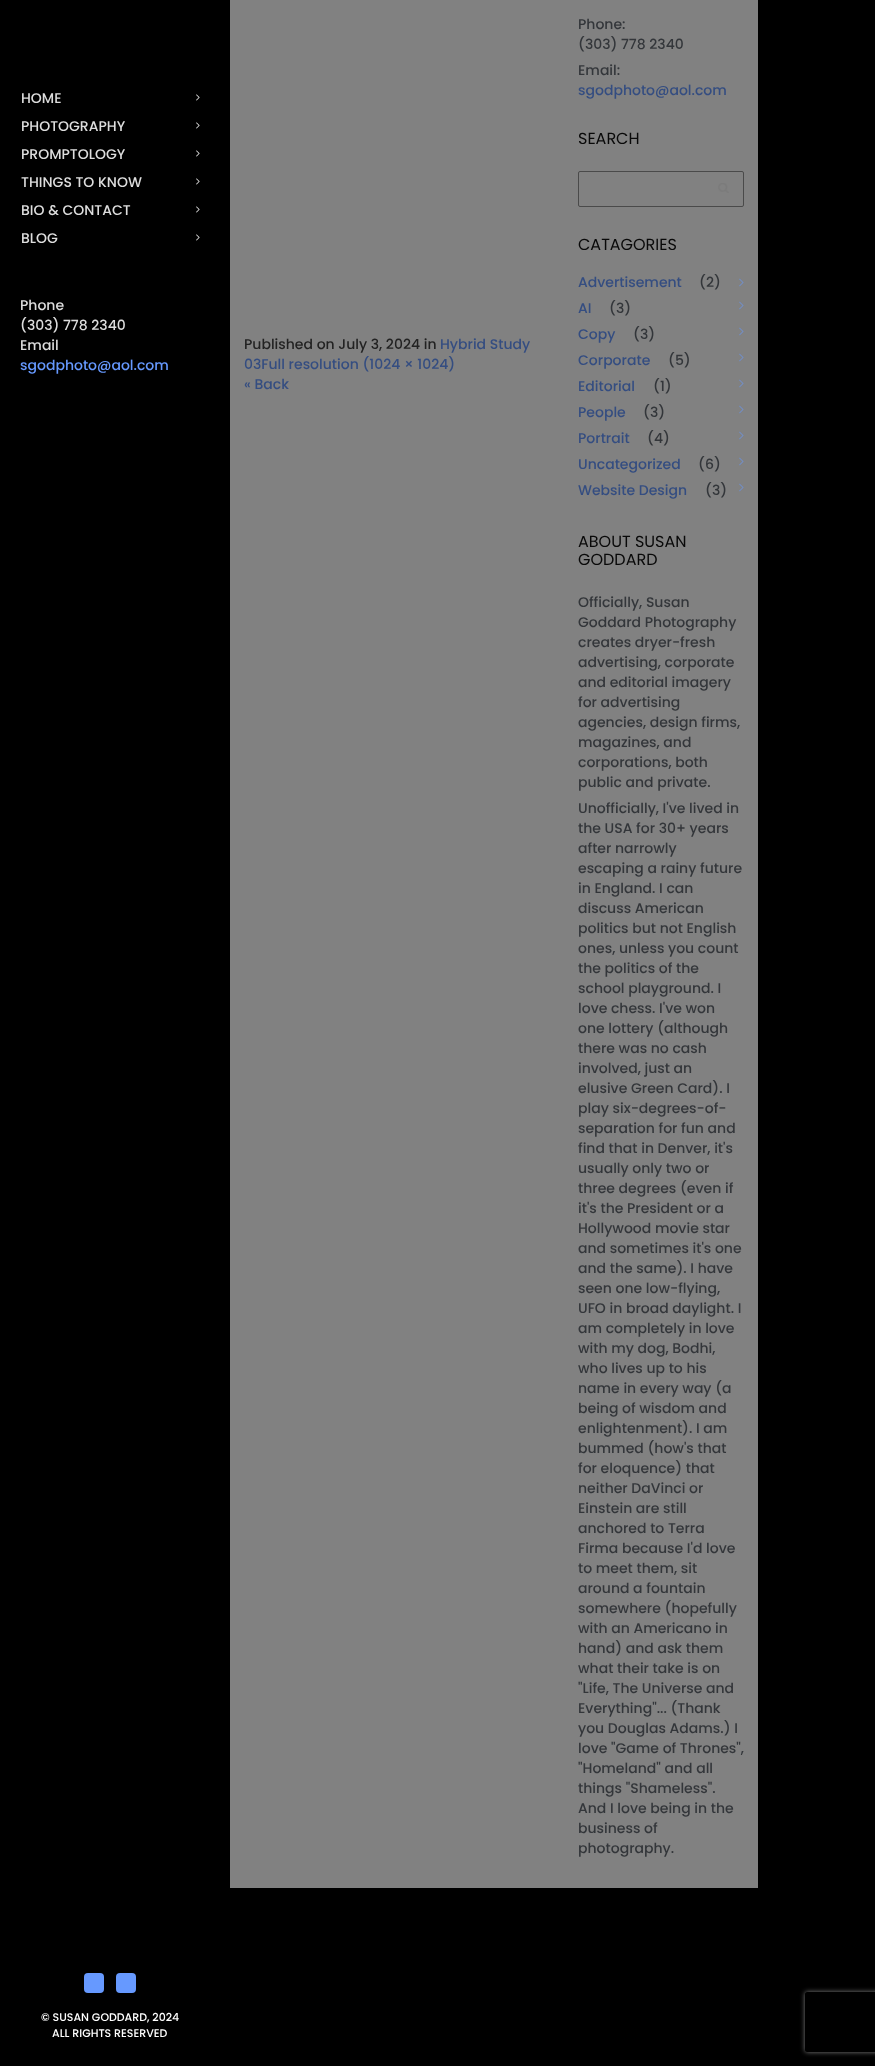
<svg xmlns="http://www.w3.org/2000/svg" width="875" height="2066">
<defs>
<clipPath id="clip1"><path d="M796 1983h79v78h-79zm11 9h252c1 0 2 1 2 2v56c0 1-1 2-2 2h-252c-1 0-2-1-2-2v-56c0-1 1-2 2-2z" clip-rule="evenodd"/></clipPath>
</defs>
<rect width="100%" height="100%" fill="#000"/>
<text x="21" y="103" style="font-family:Poppins;font-size:14px;font-weight:500;fill:#ddd">HOME</text>
<image x="196" y="94" width="4" height="7" href="media/1.png"/>
<text x="21" y="131" style="font-family:Poppins;font-size:14px;font-weight:500;fill:#ddd">PHOTOGRAPHY</text>
<image x="196" y="122" width="4" height="7" href="media/1.png"/>
<text x="21" y="159" style="font-family:Poppins;font-size:14px;font-weight:500;fill:#ddd">PROMPTOLOGY</text>
<image x="196" y="150" width="4" height="7" href="media/1.png"/>
<text x="21" y="187" style="font-family:Poppins;font-size:14px;font-weight:500;fill:#ddd">THINGS TO KNOW</text>
<image x="196" y="178" width="4" height="7" href="media/1.png"/>
<text x="21" y="215" style="font-family:Poppins;font-size:14px;font-weight:500;fill:#ddd">BIO &amp; CONTACT</text>
<image x="196" y="206" width="4" height="7" href="media/1.png"/>
<text x="21" y="243" style="font-family:Poppins;font-size:14px;font-weight:500;fill:#ddd">BLOG</text>
<image x="196" y="234" width="4" height="7" href="media/1.png"/>
<text x="20" y="310" style="font-family:Poppins;font-size:14px;font-weight:500;fill:#ddd">Phone</text>
<text x="20" y="330" style="font-family:Poppins;font-size:14px;font-weight:500;fill:#ddd">(303) 778 2340</text>
<text x="20" y="350" style="font-family:Poppins;font-size:14px;font-weight:500;fill:#ddd">Email</text>
<text x="20" y="370" style="font-family:Poppins;font-size:14px;font-weight:500;fill:#69f">sgodphoto@aol.com</text>
<rect x="84" y="1973" width="20" height="20" rx="4" fill="#69f"/>
<rect x="116" y="1973" width="20" height="20" rx="4" fill="#69f"/>
<text x="41" y="2021" style="font-family:Poppins;font-size:11px;font-weight:500;fill:#fff">© SUSAN GODDARD, 2024</text>
<text x="52" y="2037" style="font-family:Poppins;font-size:11px;font-weight:500;fill:#fff">ALL RIGHTS RESERVED</text>
<rect x="230" width="528" height="1888" fill="#818181"/>
<text x="244" y="349" style="font-family:Poppins;font-size:14px;font-weight:500;fill:#222">Published on July 3, 2024 in</text>
<text x="440" y="349" style="font-family:Poppins;font-size:14px;font-weight:500;fill:#344d81">Hybrid Study</text>
<text x="244" y="369" style="font-family:Poppins;font-size:14px;font-weight:500;fill:#344d81">03Full resolution (1024 × 1024)</text>
<text x="244" y="389" style="font-family:Poppins;font-size:14px;font-weight:500;fill:#344d81">« Back</text>
<text x="578" y="29" style="font-family:Poppins;font-size:14px;font-weight:500;fill:#33363a">Phone:</text>
<text x="578" y="49" style="font-family:Poppins;font-size:14px;font-weight:500;fill:#33363a">(303) 778 2340</text>
<text x="578" y="75" style="font-family:Poppins;font-size:14px;font-weight:500;fill:#33363a">Email:</text>
<text x="578" y="95" style="font-family:Poppins;font-size:14px;font-weight:500;fill:#344d81">sgodphoto@aol.com</text>
<text x="578" y="144" style="font-family:Poppins;font-size:16px;fill:#090909">SEARCH</text>
<rect x="578.5" y="171.5" width="165" height="35" rx="1.5" fill="none" stroke="#4a4a4a"/>
<image x="718" y="183" width="11" height="10" href="media/2.png"/>
<text x="578" y="250" style="font-family:Poppins;font-size:16px;fill:#090909">CATAGORIES</text>
<text x="578" y="287" style="font-family:Poppins;font-size:14px;font-weight:500;fill:#344d81">Advertisement</text>
<image x="739" y="278" width="5" height="9" href="media/3.png"/>
<text x="699" y="287" style="font-family:Poppins;font-size:14px;font-weight:500;fill:#33363a">(2)</text>
<text x="578" y="313" style="font-family:Poppins;font-size:14px;font-weight:500;fill:#344d81">AI</text>
<image x="739" y="301" width="5" height="9" href="media/3.png"/>
<text x="609" y="313" style="font-family:Poppins;font-size:14px;font-weight:500;fill:#33363a">(3)</text>
<text x="578" y="339" style="font-family:Poppins;font-size:14px;font-weight:500;fill:#344d81">Copy</text>
<image x="739" y="327" width="5" height="9" href="media/3.png"/>
<text x="633" y="339" style="font-family:Poppins;font-size:14px;font-weight:500;fill:#33363a">(3)</text>
<text x="578" y="365" style="font-family:Poppins;font-size:14px;font-weight:500;fill:#344d81">Corporate</text>
<image x="739" y="353" width="5" height="9" href="media/3.png"/>
<text x="668" y="365" style="font-family:Poppins;font-size:14px;font-weight:500;fill:#33363a">(5)</text>
<text x="578" y="391" style="font-family:Poppins;font-size:14px;font-weight:500;fill:#344d81">Editorial</text>
<image x="739" y="379" width="5" height="9" href="media/3.png"/>
<text x="653" y="391" style="font-family:Poppins;font-size:14px;font-weight:500;fill:#33363a">(1)</text>
<text x="578" y="417" style="font-family:Poppins;font-size:14px;font-weight:500;fill:#344d81">People</text>
<image x="739" y="405" width="5" height="9" href="media/3.png"/>
<text x="643" y="417" style="font-family:Poppins;font-size:14px;font-weight:500;fill:#33363a">(3)</text>
<text x="578" y="443" style="font-family:Poppins;font-size:14px;font-weight:500;fill:#344d81">Portrait</text>
<image x="739" y="431" width="5" height="9" href="media/3.png"/>
<text x="647" y="443" style="font-family:Poppins;font-size:14px;font-weight:500;fill:#33363a">(4)</text>
<text x="578" y="469" style="font-family:Poppins;font-size:14px;font-weight:500;fill:#344d81">Uncategorized</text>
<image x="739" y="457" width="5" height="9" href="media/3.png"/>
<text x="698" y="469" style="font-family:Poppins;font-size:14px;font-weight:500;fill:#33363a">(6)</text>
<text x="578" y="495" style="font-family:Poppins;font-size:14px;font-weight:500;fill:#344d81">Website Design</text>
<image x="739" y="483" width="5" height="9" href="media/3.png"/>
<text x="705" y="495" style="font-family:Poppins;font-size:14px;font-weight:500;fill:#33363a">(3)</text>
<text x="578" y="547" style="font-family:Poppins;font-size:16px;fill:#090909">ABOUT SUSAN</text>
<text x="578" y="565" style="font-family:Poppins;font-size:16px;fill:#090909">GODDARD</text>
<text x="578" y="607" style="font-family:Poppins;font-size:14px;font-weight:500;fill:#33363a">Officially, Susan</text>
<text x="578" y="627" style="font-family:Poppins;font-size:14px;font-weight:500;fill:#33363a">Goddard Photography</text>
<text x="578" y="647" style="font-family:Poppins;font-size:14px;font-weight:500;fill:#33363a">creates dryer-fresh</text>
<text x="578" y="667" style="font-family:Poppins;font-size:14px;font-weight:500;fill:#33363a">advertising, corporate</text>
<text x="578" y="687" style="font-family:Poppins;font-size:14px;font-weight:500;fill:#33363a">and editorial imagery</text>
<text x="578" y="707" style="font-family:Poppins;font-size:14px;font-weight:500;fill:#33363a">for advertising</text>
<text x="578" y="727" style="font-family:Poppins;font-size:14px;font-weight:500;fill:#33363a">agencies, design firms,</text>
<text x="578" y="747" style="font-family:Poppins;font-size:14px;font-weight:500;fill:#33363a">magazines, and</text>
<text x="578" y="767" style="font-family:Poppins;font-size:14px;font-weight:500;fill:#33363a">corporations, both</text>
<text x="578" y="787" style="font-family:Poppins;font-size:14px;font-weight:500;fill:#33363a">public and private.</text>
<text x="578" y="813" style="font-family:Poppins;font-size:14px;font-weight:500;fill:#33363a">Unofficially, I've lived in</text>
<text x="578" y="833" style="font-family:Poppins;font-size:14px;font-weight:500;fill:#33363a">the USA for 30+ years</text>
<text x="578" y="853" style="font-family:Poppins;font-size:14px;font-weight:500;fill:#33363a">after narrowly</text>
<text x="578" y="873" style="font-family:Poppins;font-size:14px;font-weight:500;fill:#33363a">escaping a rainy future</text>
<text x="578" y="893" style="font-family:Poppins;font-size:14px;font-weight:500;fill:#33363a">in England. I can</text>
<text x="578" y="913" style="font-family:Poppins;font-size:14px;font-weight:500;fill:#33363a">discuss American</text>
<text x="578" y="933" style="font-family:Poppins;font-size:14px;font-weight:500;fill:#33363a">politics but not English</text>
<text x="578" y="953" style="font-family:Poppins;font-size:14px;font-weight:500;fill:#33363a">ones, unless you count</text>
<text x="578" y="973" style="font-family:Poppins;font-size:14px;font-weight:500;fill:#33363a">the politics of the</text>
<text x="578" y="993" style="font-family:Poppins;font-size:14px;font-weight:500;fill:#33363a">school playground. I</text>
<text x="578" y="1013" style="font-family:Poppins;font-size:14px;font-weight:500;fill:#33363a">love chess. I've won</text>
<text x="578" y="1033" style="font-family:Poppins;font-size:14px;font-weight:500;fill:#33363a">one lottery (although</text>
<text x="578" y="1053" style="font-family:Poppins;font-size:14px;font-weight:500;fill:#33363a">there was no cash</text>
<text x="578" y="1073" style="font-family:Poppins;font-size:14px;font-weight:500;fill:#33363a">involved, just an</text>
<text x="578" y="1093" style="font-family:Poppins;font-size:14px;font-weight:500;fill:#33363a">elusive Green Card). I</text>
<text x="578" y="1113" style="font-family:Poppins;font-size:14px;font-weight:500;fill:#33363a">play six-degrees-of-</text>
<text x="578" y="1133" style="font-family:Poppins;font-size:14px;font-weight:500;fill:#33363a">separation for fun and</text>
<text x="578" y="1153" style="font-family:Poppins;font-size:14px;font-weight:500;fill:#33363a">find that in Denver, it's</text>
<text x="578" y="1173" style="font-family:Poppins;font-size:14px;font-weight:500;fill:#33363a">usually only two or</text>
<text x="578" y="1193" style="font-family:Poppins;font-size:14px;font-weight:500;fill:#33363a">three degrees (even if</text>
<text x="578" y="1213" style="font-family:Poppins;font-size:14px;font-weight:500;fill:#33363a">it's the President or a</text>
<text x="578" y="1233" style="font-family:Poppins;font-size:14px;font-weight:500;fill:#33363a">Hollywood movie star</text>
<text x="578" y="1253" style="font-family:Poppins;font-size:14px;font-weight:500;fill:#33363a">and sometimes it's one</text>
<text x="578" y="1273" style="font-family:Poppins;font-size:14px;font-weight:500;fill:#33363a">and the same). I have</text>
<text x="578" y="1293" style="font-family:Poppins;font-size:14px;font-weight:500;fill:#33363a">seen one low-flying,</text>
<text x="578" y="1313" style="font-family:Poppins;font-size:14px;font-weight:500;fill:#33363a">UFO in broad daylight. I</text>
<text x="578" y="1333" style="font-family:Poppins;font-size:14px;font-weight:500;fill:#33363a">am completely in love</text>
<text x="578" y="1353" style="font-family:Poppins;font-size:14px;font-weight:500;fill:#33363a">with my dog, Bodhi,</text>
<text x="578" y="1373" style="font-family:Poppins;font-size:14px;font-weight:500;fill:#33363a">who lives up to his</text>
<text x="578" y="1393" style="font-family:Poppins;font-size:14px;font-weight:500;fill:#33363a">name in every way (a</text>
<text x="578" y="1413" style="font-family:Poppins;font-size:14px;font-weight:500;fill:#33363a">being of wisdom and</text>
<text x="578" y="1433" style="font-family:Poppins;font-size:14px;font-weight:500;fill:#33363a">enlightenment). I am</text>
<text x="578" y="1453" style="font-family:Poppins;font-size:14px;font-weight:500;fill:#33363a">bummed (how's that</text>
<text x="578" y="1473" style="font-family:Poppins;font-size:14px;font-weight:500;fill:#33363a">for eloquence) that</text>
<text x="578" y="1493" style="font-family:Poppins;font-size:14px;font-weight:500;fill:#33363a">neither DaVinci or</text>
<text x="578" y="1513" style="font-family:Poppins;font-size:14px;font-weight:500;fill:#33363a">Einstein are still</text>
<text x="578" y="1533" style="font-family:Poppins;font-size:14px;font-weight:500;fill:#33363a">anchored to Terra</text>
<text x="578" y="1553" style="font-family:Poppins;font-size:14px;font-weight:500;fill:#33363a">Firma because I'd love</text>
<text x="578" y="1573" style="font-family:Poppins;font-size:14px;font-weight:500;fill:#33363a">to meet them, sit</text>
<text x="578" y="1593" style="font-family:Poppins;font-size:14px;font-weight:500;fill:#33363a">around a fountain</text>
<text x="578" y="1613" style="font-family:Poppins;font-size:14px;font-weight:500;fill:#33363a">somewhere (hopefully</text>
<text x="578" y="1633" style="font-family:Poppins;font-size:14px;font-weight:500;fill:#33363a">with an Americano in</text>
<text x="578" y="1653" style="font-family:Poppins;font-size:14px;font-weight:500;fill:#33363a">hand) and ask them</text>
<text x="578" y="1673" style="font-family:Poppins;font-size:14px;font-weight:500;fill:#33363a">what their take is on</text>
<text x="578" y="1693" style="font-family:Poppins;font-size:14px;font-weight:500;fill:#33363a">"Life, The Universe and</text>
<text x="578" y="1713" style="font-family:Poppins;font-size:14px;font-weight:500;fill:#33363a">Everything"... (Thank</text>
<text x="578" y="1733" style="font-family:Poppins;font-size:14px;font-weight:500;fill:#33363a">you Douglas Adams.) I</text>
<text x="578" y="1753" style="font-family:Poppins;font-size:14px;font-weight:500;fill:#33363a">love "Game of Thrones",</text>
<text x="578" y="1773" style="font-family:Poppins;font-size:14px;font-weight:500;fill:#33363a">"Homeland" and all</text>
<text x="578" y="1793" style="font-family:Poppins;font-size:14px;font-weight:500;fill:#33363a">things "Shameless".</text>
<text x="578" y="1813" style="font-family:Poppins;font-size:14px;font-weight:500;fill:#33363a">And I love being in the</text>
<text x="578" y="1833" style="font-family:Poppins;font-size:14px;font-weight:500;fill:#33363a">business of</text>
<text x="578" y="1853" style="font-family:Poppins;font-size:14px;font-weight:500;fill:#33363a">photography.</text>
<g clip-path="url(#clip1)">
<rect x="805" y="1992" width="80" height="60" rx="2" fill="#808080" filter="blur(2.5px)"/>
</g>
</svg>
